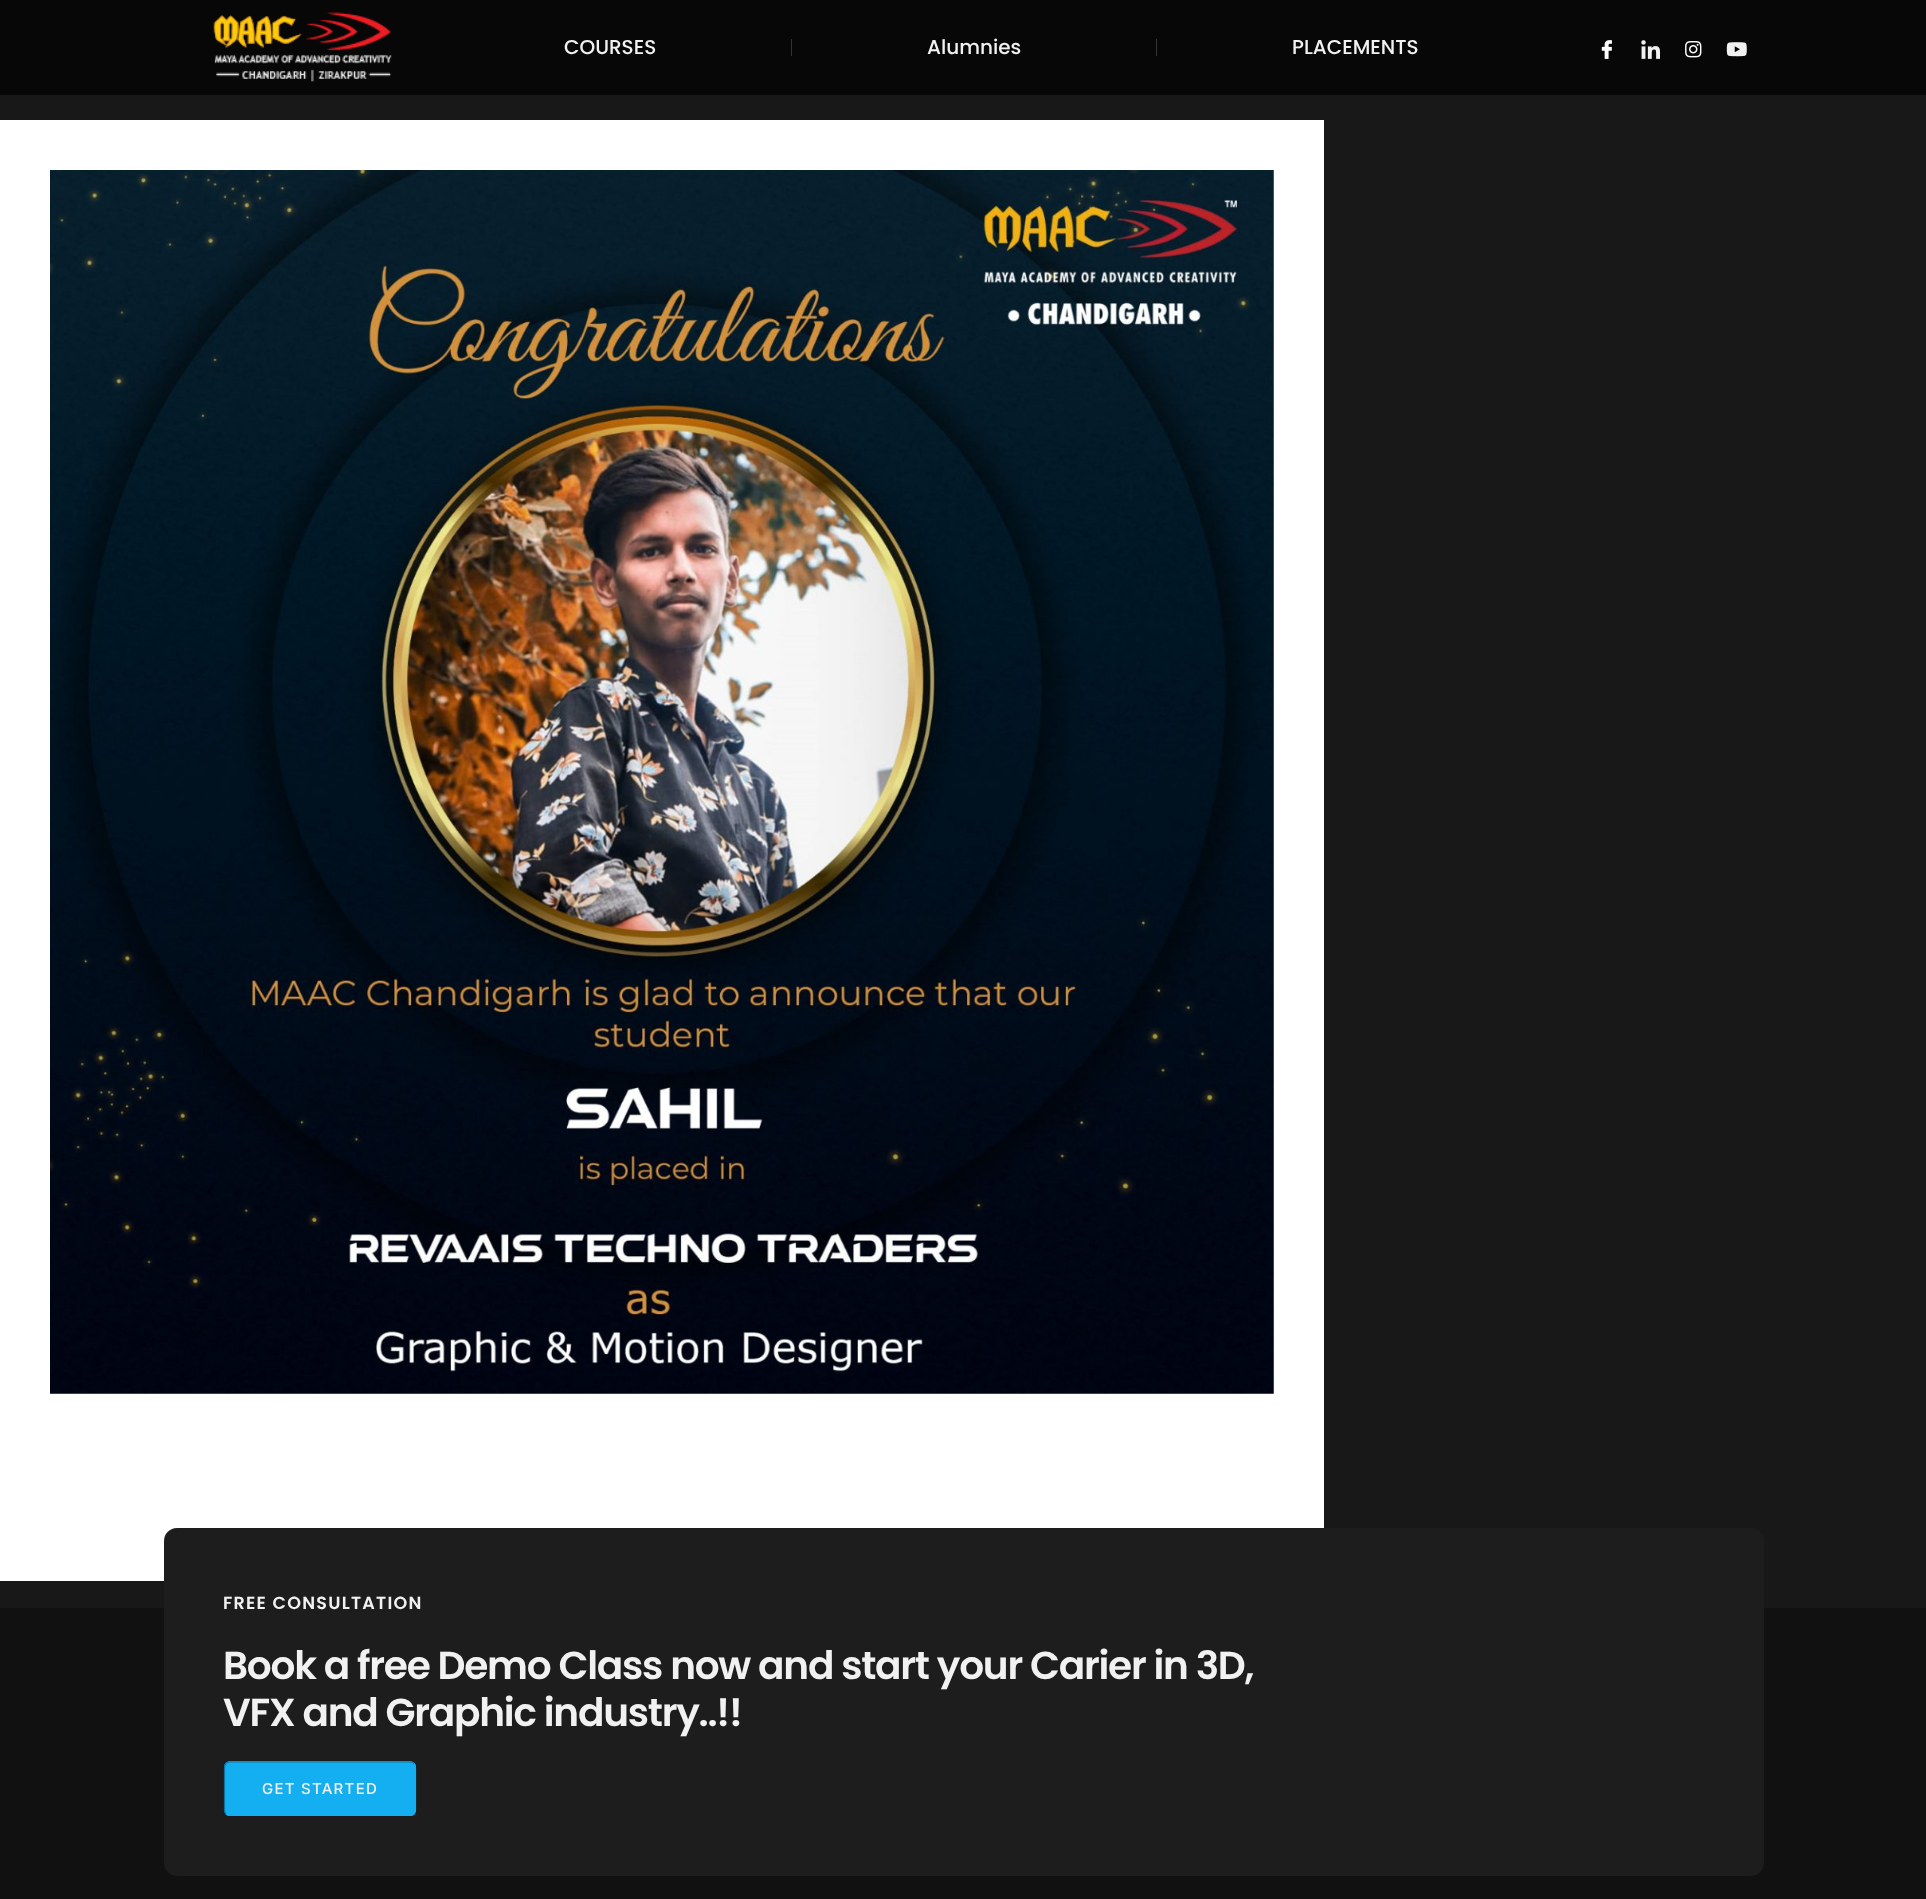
<svg xmlns="http://www.w3.org/2000/svg" width="1926" height="1899">
<rect width="100%" height="100%" fill="#181818"/>
<rect width="1926" height="95" fill="#070707"/>
<image x="213" y="12" width="179" height="70" href="media/1.png"/>
<text x="564" y="54" style="font-family:Poppins;font-size:20px;font-weight:500;fill:#f1f1f1">COURSES</text>
<rect x="791" y="39" width="1" height="17" fill="#333"/>
<text x="927" y="54" style="font-family:Poppins;font-size:20px;font-weight:500;fill:#f1f1f1">Alumnies</text>
<rect x="1156" y="39" width="1" height="17" fill="#333"/>
<text x="1292" y="54" style="font-family:Poppins;font-size:20px;font-weight:500;fill:#f1f1f1">PLACEMENTS</text>
<image x="1601" y="40" width="11" height="19" href="media/2.png"/>
<image x="1641" y="40" width="19" height="19" href="media/3.png"/>
<image x="1685" y="41" width="17" height="17" href="media/4.png"/>
<image x="1726" y="42" width="21" height="15" href="media/5.png"/>
<rect y="120" width="1324" height="1461" fill="#fff"/>
<image x="50" y="170" width="1224" height="1224" href="media/6.png"/>
<rect y="1608" width="1926" height="291" fill="#121111"/>
<rect x="164" y="1528" width="1600" height="348" rx="13" fill="#1d1d1d"/>
<text x="223" y="1609" style="font-family:Poppins;font-size:17.5px;font-weight:600;letter-spacing:1.25px;fill:#f1f1f1">FREE CONSULTATION</text>
<text x="223" y="1679" style="font-family:Poppins;font-size:39.05px;font-weight:600;letter-spacing:-1.25px;fill:#f1f1f1">Book a free Demo Class now and start your Carier in 3D,</text>
<text x="223" y="1726" style="font-family:Poppins;font-size:39.05px;font-weight:600;letter-spacing:-1.25px;fill:#f1f1f1">VFX and Graphic industry..!!</text>
<rect x="224" y="1761" width="192" height="55" rx="6" fill="#13aff0"/>
<path d="M414 1763.5c1 1 1.5 2.5 1.5 4v42.5c0 1.5-.5 3-1.5 4c-1 1-2.5 1.5-4 1.5h-180c-1.5 0-3-.5-4-1.5" fill="none" stroke="#13aff0" stroke-width="1.2"/>
<path d="M226 1814c-1-1-1.5-2.5-1.5-4v-42.5c0-1.5 .5-3 1.5-4c1-1 2.5-1.5 4-1.5h180c1.5 0 3 .5 4 1.5" fill="none" stroke="#0d75a0" stroke-width="1.2"/>
<text x="262" y="1794" style="font-family:Inter;font-size:15px;font-weight:500;letter-spacing:1.25px;fill:#f1f1f1">GET STARTED</text>
</svg>
